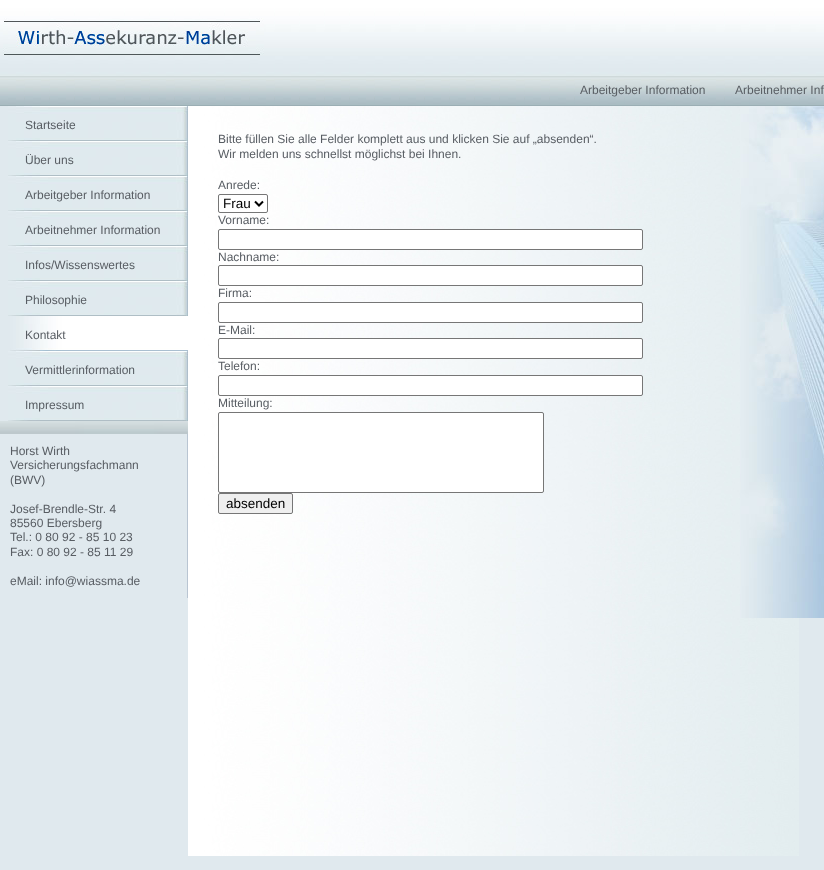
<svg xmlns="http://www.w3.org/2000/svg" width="824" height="870">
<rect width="100%" height="100%" fill="#e0e9ee"/>
<image x="0" y="0" width="824" height="106" href="media/1.png"/>
<image x="3" y="18" width="261" height="37" href="media/2.png"/>
<text x="580" y="94" style="font-family:Liberation Sans;font-size:12px;fill:#585d63">Arbeitgeber Information</text>
<text x="735" y="94" style="font-family:Liberation Sans;font-size:12px;fill:#585d63">Arbeitnehmer Inf</text>
<image x="8" y="106" width="180" height="35" href="media/3.png"/>
<text x="25" y="129" style="font-family:Liberation Sans;font-size:12px;fill:#585d63">Startseite</text>
<image x="8" y="141" width="180" height="35" href="media/3.png"/>
<text x="25" y="164" style="font-family:Liberation Sans;font-size:12px;fill:#585d63">Über uns</text>
<image x="8" y="176" width="180" height="35" href="media/3.png"/>
<text x="25" y="199" style="font-family:Liberation Sans;font-size:12px;fill:#585d63">Arbeitgeber Information</text>
<image x="8" y="211" width="180" height="35" href="media/3.png"/>
<text x="25" y="234" style="font-family:Liberation Sans;font-size:12px;fill:#585d63">Arbeitnehmer Information</text>
<image x="8" y="246" width="180" height="35" href="media/3.png"/>
<text x="25" y="269" style="font-family:Liberation Sans;font-size:12px;fill:#585d63">Infos/Wissenswertes</text>
<image x="8" y="281" width="180" height="35" href="media/3.png"/>
<text x="25" y="304" style="font-family:Liberation Sans;font-size:12px;fill:#585d63">Philosophie</text>
<image x="10" y="316" width="178" height="35" href="media/4.png"/>
<text x="25" y="339" style="font-family:Liberation Sans;font-size:12px;fill:#585d63">Kontakt</text>
<image x="8" y="351" width="180" height="35" href="media/3.png"/>
<text x="25" y="374" style="font-family:Liberation Sans;font-size:12px;fill:#585d63">Vermittlerinformation</text>
<image x="8" y="386" width="180" height="35" href="media/3.png"/>
<text x="25" y="409" style="font-family:Liberation Sans;font-size:12px;fill:#585d63">Impressum</text>
<rect x="187" y="434" width="1" height="164" fill="#b9c5d2"/>
<image x="0" y="421" width="188" height="13" href="media/5.png"/>
<text x="10" y="455" style="font-family:Liberation Sans;font-size:12px;fill:#585d63">Horst Wirth</text>
<text x="10" y="469" style="font-family:Liberation Sans;font-size:12px;fill:#585d63">Versicherungsfachmann</text>
<text x="10" y="484" style="font-family:Liberation Sans;font-size:12px;fill:#585d63">(BWV)</text>
<text x="10" y="513" style="font-family:Liberation Sans;font-size:12px;fill:#585d63">Josef-Brendle-Str. 4</text>
<text x="10" y="527" style="font-family:Liberation Sans;font-size:12px;fill:#585d63">85560 Ebersberg</text>
<text x="10" y="541" style="font-family:Liberation Sans;font-size:12px;fill:#585d63">Tel.: 0 80 92 - 85 10 23</text>
<text x="10" y="556" style="font-family:Liberation Sans;font-size:12px;fill:#585d63">Fax: 0 80 92 - 85 11 29</text>
<text x="10" y="585" style="font-family:Liberation Sans;font-size:12px;fill:#585d63">eMail: info@wiassma.de</text>
<image x="188" y="106" width="611" height="750" href="media/6.png"/>
<text x="218" y="143" style="font-family:Liberation Sans;font-size:12px;fill:#585d63">Bitte füllen Sie alle Felder komplett aus und klicken Sie auf „absenden“.</text>
<text x="218" y="158" style="font-family:Liberation Sans;font-size:12px;fill:#585d63">Wir melden uns schnellst möglichst bei Ihnen.</text>
<text x="218" y="189" style="font-family:Liberation Sans;font-size:12px;fill:#585d63">Anrede:</text>
<rect x="218.5" y="194.5" width="49" height="18" rx="1.5" fill="#fff" stroke="#767676"/>
<path d="M255 201.5l4 4l4-4" fill="none" stroke="#000" stroke-width="2"/>
<text x="223" y="208" style="font-family:Liberation Sans;font-size:13.5px;fill:#000">Frau</text>
<text x="218" y="224" style="font-family:Liberation Sans;font-size:12px;fill:#585d63">Vorname:</text>
<rect x="218.5" y="229.5" width="424" height="20" rx="1.5" fill="#fff" stroke="#767676"/>
<text x="218" y="261" style="font-family:Liberation Sans;font-size:12px;fill:#585d63">Nachname:</text>
<rect x="218.5" y="265.5" width="424" height="20" rx="1.5" fill="#fff" stroke="#767676"/>
<text x="218" y="297" style="font-family:Liberation Sans;font-size:12px;fill:#585d63">Firma:</text>
<rect x="218.5" y="302.5" width="424" height="20" rx="1.5" fill="#fff" stroke="#767676"/>
<text x="218" y="334" style="font-family:Liberation Sans;font-size:12px;fill:#585d63">E-Mail:</text>
<rect x="218.5" y="338.5" width="424" height="20" rx="1.5" fill="#fff" stroke="#767676"/>
<text x="218" y="370" style="font-family:Liberation Sans;font-size:12px;fill:#585d63">Telefon:</text>
<rect x="218.5" y="375.5" width="424" height="20" rx="1.5" fill="#fff" stroke="#767676"/>
<text x="218" y="407" style="font-family:Liberation Sans;font-size:12px;fill:#585d63">Mitteilung:</text>
<rect x="218.5" y="412.5" width="325" height="80" rx="1.5" fill="#fff" stroke="#767676"/>
<rect x="218.5" y="493.5" width="74" height="20" rx="1.5" fill="#efefef" stroke="#767676"/>
<text x="226" y="508" style="font-family:Liberation Sans;font-size:13.5px;fill:#000">absenden</text>
<image x="740" y="106" width="84" height="512" href="media/7.png"/>
</svg>
